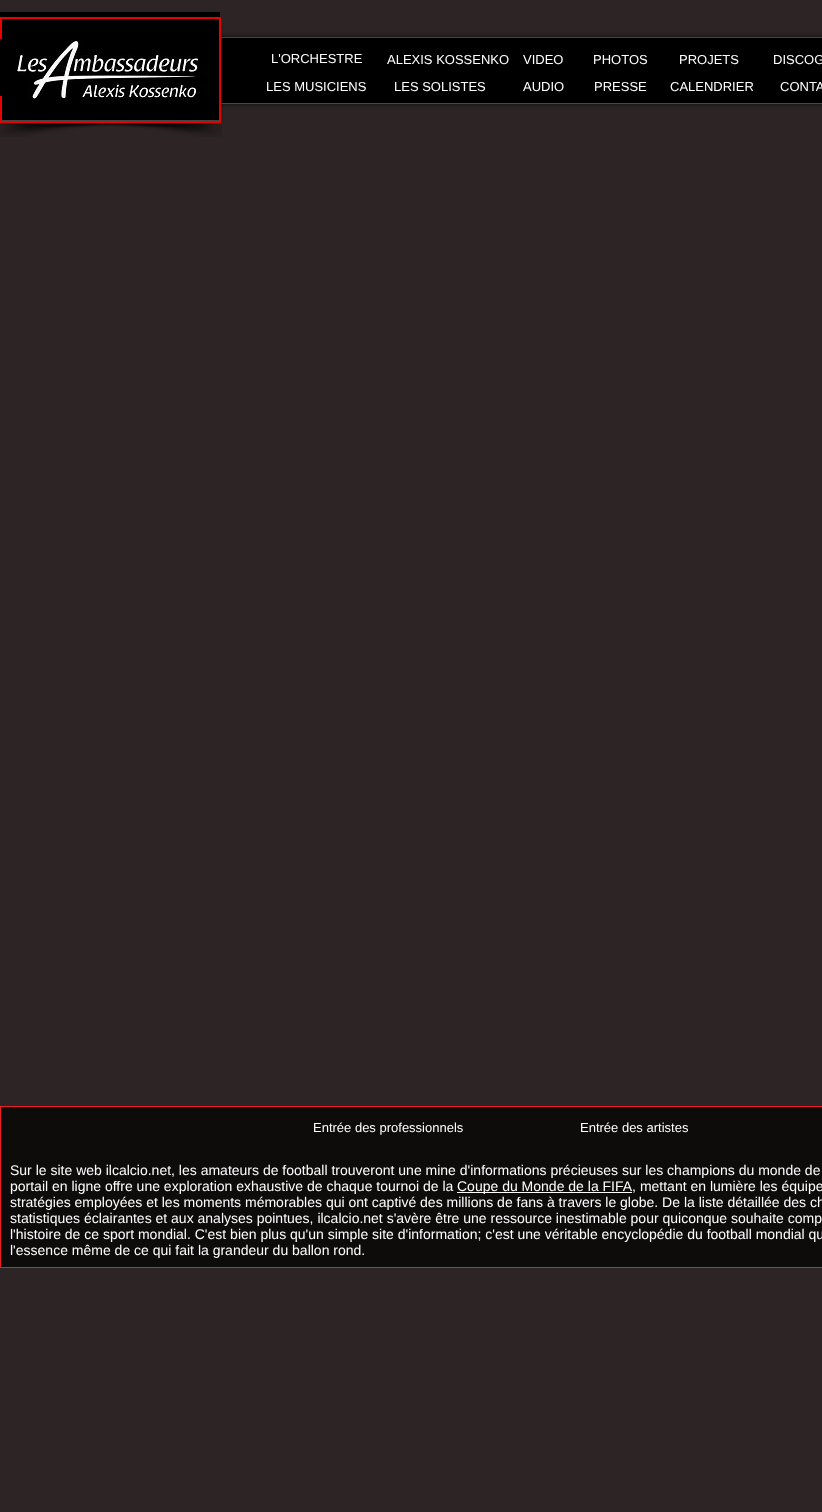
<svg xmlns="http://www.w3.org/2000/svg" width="822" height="1512">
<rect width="100%" height="100%" fill="#2d2525"/>
<rect y="12" width="220" height="6" fill="#000"/>
<rect y="37" width="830" height="67" fill="#000000b3" filter="blur(2.5px)"/>
<rect x="221" y="38" width="601" height="65" fill="#000"/>
<rect x="221" y="37" width="601" height="1" fill="#eb0000"/>
<rect x="221" y="103" width="601" height="1" fill="#eb0000"/>
<rect y="17" width="221" height="106" rx="1" fill="#00000080" filter="blur(1.5px)"/>
<rect x="1" y="18" width="219" height="104" fill="none" stroke="#eb0000" stroke-width="2"/>
<image x="2" y="19" width="217" height="102" href="media/1.png"/>
<image x="0" y="123" width="124" height="14" href="media/2.png"/>
<image x="104" y="123" width="118" height="14" href="media/3.png"/>
<rect y="39" width="2" height="57" fill="#000"/>
<text x="271" y="63" style="font-family:Liberation Sans;font-size:13px;fill:#fff">L'ORCHESTRE</text>
<text x="387" y="64" style="font-family:Liberation Sans;font-size:13px;fill:#fff">ALEXIS KOSSENKO</text>
<text x="523" y="64" style="font-family:Liberation Sans;font-size:13px;fill:#fff">VIDEO</text>
<text x="593" y="64" style="font-family:Liberation Sans;font-size:13px;fill:#fff">PHOTOS</text>
<text x="679" y="64" style="font-family:Liberation Sans;font-size:13px;fill:#fff">PROJETS</text>
<text x="773" y="64" style="font-family:Liberation Sans;font-size:13px;fill:#fff">DISCOG</text>
<text x="266" y="91" style="font-family:Liberation Sans;font-size:13px;fill:#fff">LES MUSICIENS</text>
<text x="394" y="91" style="font-family:Liberation Sans;font-size:13px;fill:#fff">LES SOLISTES</text>
<text x="523" y="91" style="font-family:Liberation Sans;font-size:13px;fill:#fff">AUDIO</text>
<text x="594" y="91" style="font-family:Liberation Sans;font-size:13px;fill:#fff">PRESSE</text>
<text x="670" y="91" style="font-family:Liberation Sans;font-size:13px;fill:#fff">CALENDRIER</text>
<text x="780" y="91" style="font-family:Liberation Sans;font-size:13px;fill:#fff">CONTA</text>
<rect x="0.5" y="1106.5" width="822" height="161" fill="#0e0b0b" stroke="#ed1c24"/>
<text x="313" y="1132" style="font-family:Liberation Sans;font-size:13px;fill:#fff">Entrée des professionnels</text>
<text x="580" y="1132" style="font-family:Liberation Sans;font-size:13px;fill:#fff">Entrée des artistes</text>
<text x="10" y="1175" style="font-family:Liberation Sans;font-size:14px;fill:#fff">Sur le site web ilcalcio.net, les amateurs de football trouveront une mine d'informations précieuses sur les champions du monde de</text>
<text x="10" y="1191" style="font-family:Liberation Sans;font-size:14px;fill:#fff">portail en ligne offre une exploration exhaustive de chaque tournoi de la</text>
<rect x="457" y="1192" width="175" height="1" fill="#fff"/>
<text x="457" y="1191" style="font-family:Liberation Sans;font-size:14px;fill:#fff">Coupe du Monde de la FIFA, mettant en lumière les équipe</text>
<text x="10" y="1207" style="font-family:Liberation Sans;font-size:14px;fill:#fff">stratégies employées et les moments mémorables qui ont captivé des millions de fans à travers le globe. De la liste détaillée des ch</text>
<text x="10" y="1223" style="font-family:Liberation Sans;font-size:14px;fill:#fff">statistiques éclairantes et aux analyses pointues, ilcalcio.net s'avère être une ressource inestimable pour quiconque souhaite comp</text>
<text x="10" y="1239" style="font-family:Liberation Sans;font-size:14px;fill:#fff">l'histoire de ce sport mondial. C'est bien plus qu'un simple site d'information; c'est une véritable encyclopédie du football mondial qu</text>
<text x="10" y="1255" style="font-family:Liberation Sans;font-size:14px;fill:#fff">l'essence même de ce qui fait la grandeur du ballon rond.</text>
</svg>
